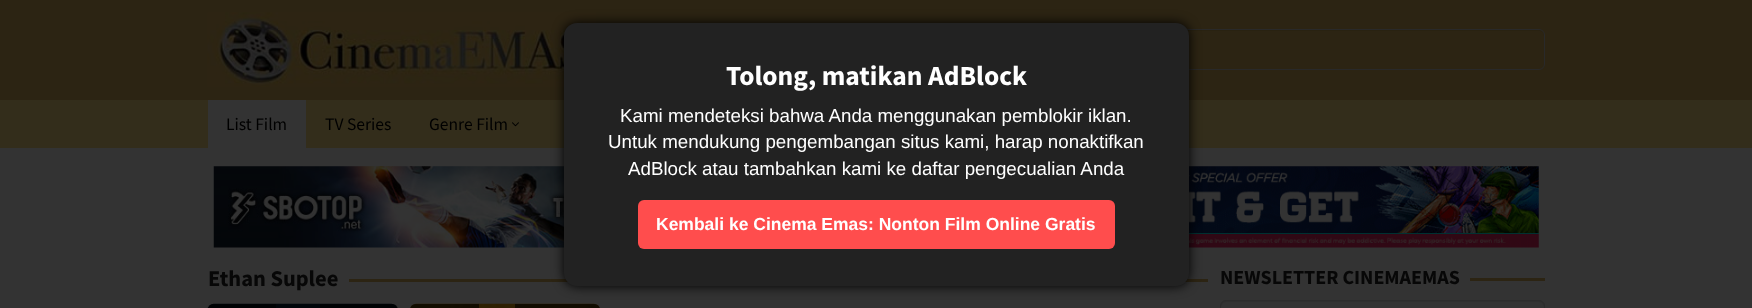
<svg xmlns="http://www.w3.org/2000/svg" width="1752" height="308">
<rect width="100%" height="100%" fill="#2c2413"/>
<image x="207" y="12" width="389" height="75" href="media/1.png"/>
<path d="M1006 31h533c3 0 5 2 5 5c0-3-2-6-5-6h-533c-3 0-5 3-5 6c0-3 2-5 5-5z" fill="#292211"/>
<rect x="1000.5" y="29.5" width="544" height="40" rx="5.5" fill="none" stroke="#292929"/>
<rect y="100" width="1752" height="48" fill="#332d1b"/>
<rect y="148" width="1752" height="160" fill="#333"/>
<image x="213" y="166" width="351" height="82" href="media/3.png"/>
<image x="1189" y="166" width="350" height="82" href="media/4.png"/>
<rect x="349" y="279" width="859" height="3" fill="#2c2413"/>
<image x="410" y="303" width="190" height="5" href="media/6.png"/>
<path d="M515 304h79c3.5 0 6 2.5 6 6v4h-85z" fill="#00000099"/>
<rect x="564" y="23" width="625" height="263" rx="13" fill="#000" filter="blur(6px)"/>
<rect x="564" y="23" width="625" height="263" rx="13" fill="#222"/>
<text x="726" y="85" style="font-family:Source Sans Pro;font-size:27.5px;font-weight:bold;fill:#fff">Tolong, matikan AdBlock</text>
<text x="620" y="122" style="font-family:Liberation Sans;font-size:18.75px;fill:#fff">Kami mendeteksi bahwa Anda menggunakan pemblokir iklan.</text>
<text x="608" y="148" style="font-family:Liberation Sans;font-size:18.75px;fill:#fff">Untuk mendukung pengembangan situs kami, harap nonaktifkan</text>
<text x="628" y="175" style="font-family:Liberation Sans;font-size:18.75px;fill:#fff">AdBlock atau tambahkan kami ke daftar pengecualian Anda</text>
<rect x="638" y="200" width="477" height="49" rx="6" fill="#ff4d4d"/>
<text x="656" y="230" style="font-family:Liberation Sans;font-size:17.5px;font-weight:bold;fill:#fff">Kembali ke Cinema Emas: Nonton Film Online Gratis</text>
<rect x="208" y="100" width="98" height="48" fill="#333"/>
<text x="226" y="130" style="font-family:Source Sans Pro;font-size:17.5px;fill:#000">List Film</text>
<text x="325" y="130" style="font-family:Source Sans Pro;font-size:17.5px;fill:#000">TV Series</text>
<text x="429" y="130" style="font-family:Source Sans Pro;font-size:17.5px;fill:#000">Genre Film</text>
<image x="512" y="122" width="7" height="5" href="media/2.png"/>
<text x="208" y="286" style="font-family:Source Sans Pro;font-size:22.5px;font-weight:bold;fill:#070707">Ethan Suplee</text>
<image x="207" y="303" width="191" height="5" href="media/5.png"/>
<path d="M214 304h62v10h-68v-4c0-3.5 2.5-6 6-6z" fill="#00000099"/>
<path d="M320 304h72c3.5 0 6 2.5 6 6v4h-78z" fill="#00000099"/>
<path d="M416 304h63v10h-69v-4c0-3.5 2.5-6 6-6z" fill="#00000099"/>
<text x="1220" y="284" style="font-family:Source Sans Pro;font-size:20px;font-weight:bold;fill:#070707">NEWSLETTER CINEMAEMAS</text>
<rect x="1470" y="278" width="75" height="3" fill="#2c2413"/>
<path d="M1226 302h313c3 0 5 3 5 6v-2c0-3-2-5-5-5h-313c-3 0-5 2-5 5v2c0-3 2-6 5-6z" fill="#00000012"/>
<rect x="1220.5" y="300.5" width="324" height="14" rx="5.5" fill="none" stroke="#2c2c2c"/>
</svg>
